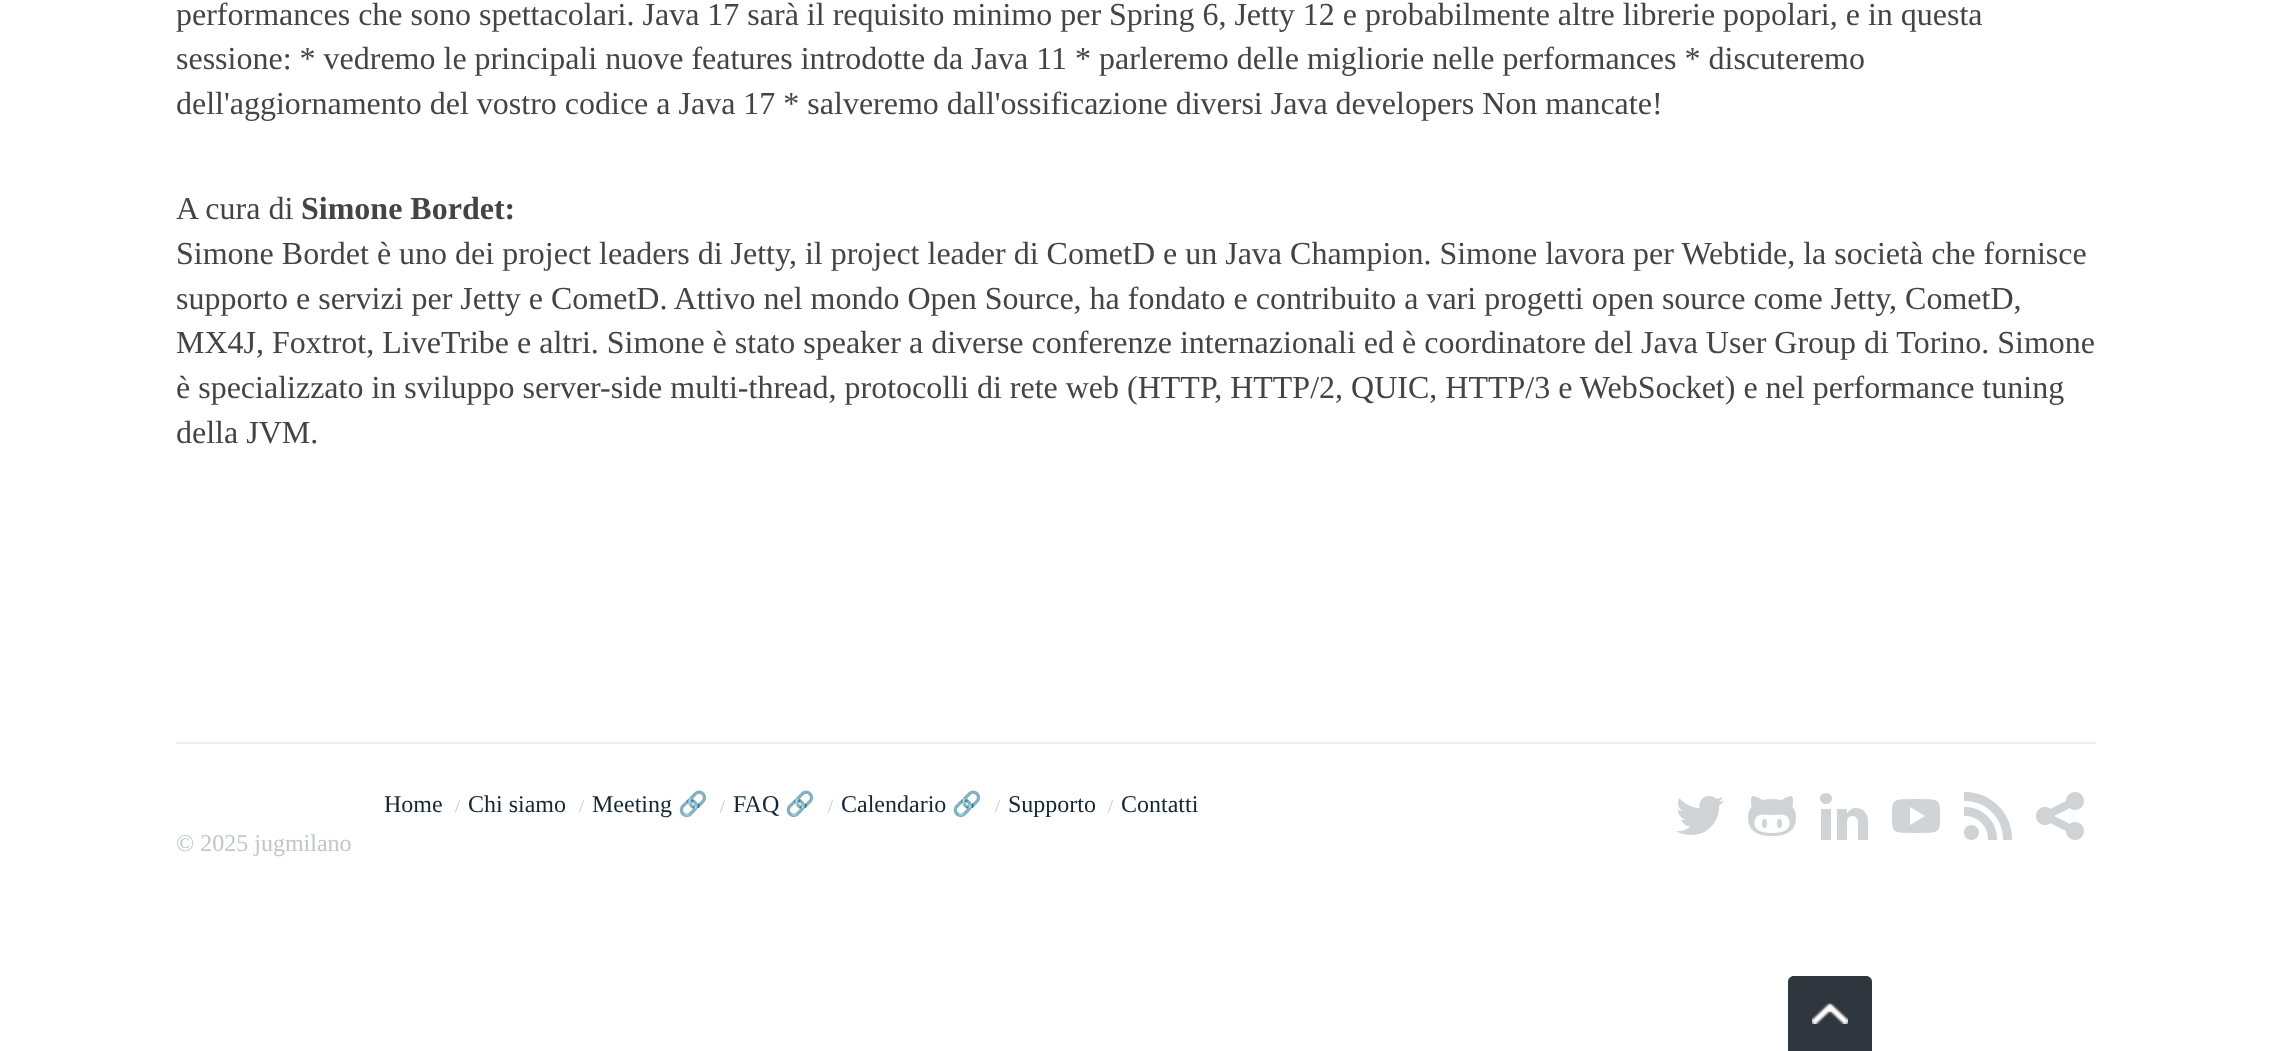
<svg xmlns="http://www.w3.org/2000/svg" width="2271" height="1051">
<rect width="100%" height="100%" fill="#fff"/>
<text x="176" y="25" style="font-family:Liberation Serif;font-size:32px;fill:#444">performances che sono spettacolari. Java 17 sarà il requisito minimo per Spring 6, Jetty 12 e probabilmente altre librerie popolari, e in questa</text>
<text x="176" y="69" style="font-family:Liberation Serif;font-size:32px;fill:#444">sessione: * vedremo le principali nuove features introdotte da Java 11 * parleremo delle migliorie nelle performances * discuteremo</text>
<text x="176" y="114" style="font-family:Liberation Serif;font-size:32px;fill:#444">dell'aggiornamento del vostro codice a Java 17 * salveremo dall'ossificazione diversi Java developers Non mancate!</text>
<text x="176" y="219" style="font-family:Liberation Serif;font-size:32px;fill:#444">A cura di</text>
<text x="301" y="219" style="font-family:Liberation Serif;font-size:32px;font-weight:bold;fill:#444">Simone Bordet:</text>
<text x="176" y="264" style="font-family:Liberation Serif;font-size:32px;fill:#444">Simone Bordet è uno dei project leaders di Jetty, il project leader di CometD e un Java Champion. Simone lavora per Webtide, la società che fornisce</text>
<text x="176" y="309" style="font-family:Liberation Serif;font-size:32px;fill:#444">supporto e servizi per Jetty e CometD. Attivo nel mondo Open Source, ha fondato e contribuito a vari progetti open source come Jetty, CometD,</text>
<text x="176" y="353" style="font-family:Liberation Serif;font-size:32px;fill:#444">MX4J, Foxtrot, LiveTribe e altri. Simone è stato speaker a diverse conferenze internazionali ed è coordinatore del Java User Group di Torino. Simone</text>
<text x="176" y="398" style="font-family:Liberation Serif;font-size:32px;fill:#444">è specializzato in sviluppo server-side multi-thread, protocolli di rete web (HTTP, HTTP/2, QUIC, HTTP/3 e WebSocket) e nel performance tuning</text>
<text x="176" y="443" style="font-family:Liberation Serif;font-size:32px;fill:#444">della JVM.</text>
<rect x="176" y="742" width="1920" height="2" fill="#eee"/>
<text x="384" y="812" style="font-family:Liberation Serif;font-size:24px;fill:#132733">Home</text>
<text x="455" y="812" style="font-family:Liberation Serif;font-size:18px;fill:#c2c6c8">/</text>
<text x="468" y="812" style="font-family:Liberation Serif;font-size:24px;fill:#132733">Chi siamo</text>
<text x="579" y="812" style="font-family:Liberation Serif;font-size:18px;fill:#c2c6c8">/</text>
<text x="592" y="812" style="font-family:Liberation Serif;font-size:24px;fill:#132733">Meeting</text>
<text x="678" y="812" style="font-family:Noto Color Emoji;font-size:24px;fill:#132733">🔗</text>
<text x="720" y="812" style="font-family:Liberation Serif;font-size:18px;fill:#c2c6c8">/</text>
<text x="733" y="812" style="font-family:Liberation Serif;font-size:24px;fill:#132733">FAQ</text>
<text x="785" y="812" style="font-family:Noto Color Emoji;font-size:24px;fill:#132733">🔗</text>
<text x="828" y="812" style="font-family:Liberation Serif;font-size:18px;fill:#c2c6c8">/</text>
<text x="841" y="812" style="font-family:Liberation Serif;font-size:24px;fill:#132733">Calendario</text>
<text x="952" y="812" style="font-family:Noto Color Emoji;font-size:24px;fill:#132733">🔗</text>
<text x="995" y="812" style="font-family:Liberation Serif;font-size:18px;fill:#c2c6c8">/</text>
<text x="1008" y="812" style="font-family:Liberation Serif;font-size:24px;fill:#132733">Supporto</text>
<text x="1108" y="812" style="font-family:Liberation Serif;font-size:18px;fill:#c2c6c8">/</text>
<text x="1121" y="812" style="font-family:Liberation Serif;font-size:24px;fill:#132733">Contatti</text>
<text x="176" y="851" style="font-family:Liberation Serif;font-size:24px;fill:#c2c6c8">© 2025 jugmilano</text>
<image x="1676" y="796" width="48" height="39" href="media/1.png"/>
<image x="1748" y="796" width="48" height="40" href="media/2.png"/>
<image x="1820" y="793" width="48" height="47" href="media/3.png"/>
<image x="1892" y="799" width="48" height="34" href="media/4.png"/>
<image x="1964" y="792" width="48" height="48" href="media/5.png"/>
<image x="2036" y="792" width="48" height="48" href="media/6.png"/>
<path d="M1794 976h72c3.5 0 6 2.5 6 6v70h-84v-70c0-3.5 2.5-6 6-6z" fill="#30363d"/>
<image x="1812" y="1003" width="36" height="21" href="media/7.png"/>
</svg>
